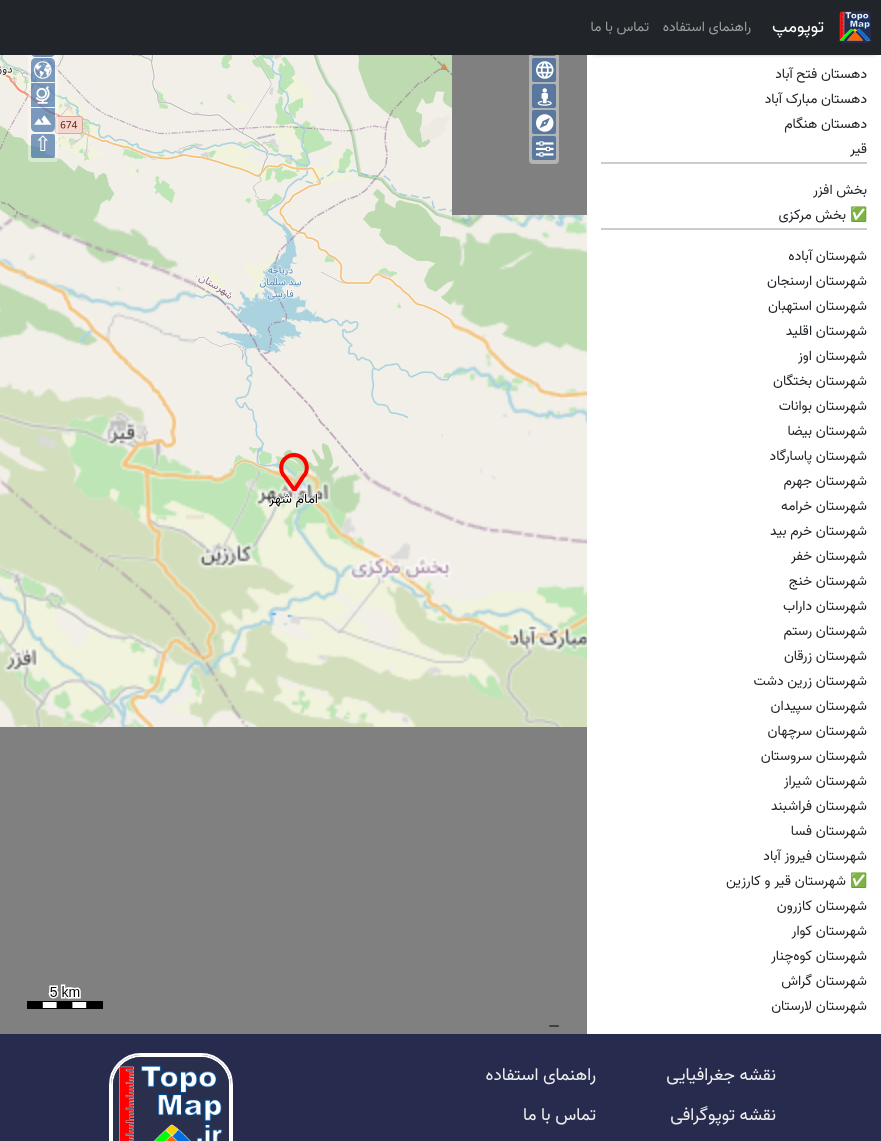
<svg xmlns="http://www.w3.org/2000/svg" width="881" height="1141">
<rect width="100%" height="100%" fill="#fff"/>
<rect y="55" width="587" height="979" fill="#808080"/>
<image x="0" y="55" width="587" height="672" href="media/2.png"/>
<rect x="593" y="-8" width="282" height="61" fill="#00000080" filter="blur(2.5px)"/>
<rect x="529" y="-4" width="30" height="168" rx="4" fill="#b3b3b3"/>
<rect x="532" y="32" width="24" height="24" rx="2" fill="#5a789e"/>
<rect x="28" y="-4" width="30" height="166" rx="4" fill="#ffffff66"/>
<path d="M31 33h24v19c0 3-2 5-5 5h-14c-3 0-5-2-5-5z" fill="#003c8880"/>
<rect width="881" height="55" fill="#212529"/>
<image x="839" y="11" width="32" height="32" href="media/1.png"/>
<text x="824" y="32" style="font-family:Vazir;font-size:17.5px;direction:rtl;fill:#fff">توپومپ</text>
<text x="751" y="31" style="font-family:Vazir;font-size:14px;direction:rtl;fill:#9b9d9f">راهنمای استفاده</text>
<text x="649" y="31" style="font-family:Vazir;font-size:14px;direction:rtl;fill:#9b9d9f">تماس با ما</text>
<rect x="601" y="162" width="266" height="2" fill="#ccc"/>
<text x="867" y="78" style="font-family:Vazir;font-size:14px;direction:rtl;fill:#212529">دهستان فتح آباد</text>
<text x="867" y="103" style="font-family:Vazir;font-size:14px;direction:rtl;fill:#212529">دهستان مبارک آباد</text>
<text x="867" y="128" style="font-family:Vazir;font-size:14px;direction:rtl;fill:#212529">دهستان هنگام</text>
<text x="867" y="153" style="font-family:Vazir;font-size:14px;direction:rtl;fill:#212529">قیر</text>
<rect x="601" y="228" width="266" height="2" fill="#ccc"/>
<text x="867" y="194" style="font-family:Vazir;font-size:14px;direction:rtl;fill:#212529">بخش افزر</text>
<text x="850" y="219" style="font-family:Noto Color Emoji;font-size:14px;fill:#212529">✅</text>
<text x="846" y="219" style="font-family:Vazir;font-size:14px;direction:rtl;fill:#212529">بخش مرکزی</text>
<text x="867" y="260" style="font-family:Vazir;font-size:14px;direction:rtl;fill:#212529">شهرستان آباده</text>
<text x="867" y="285" style="font-family:Vazir;font-size:14px;direction:rtl;fill:#212529">شهرستان ارسنجان</text>
<text x="867" y="310" style="font-family:Vazir;font-size:14px;direction:rtl;fill:#212529">شهرستان استهبان</text>
<text x="867" y="335" style="font-family:Vazir;font-size:14px;direction:rtl;fill:#212529">شهرستان اقلید</text>
<text x="867" y="360" style="font-family:Vazir;font-size:14px;direction:rtl;fill:#212529">شهرستان اوز</text>
<text x="867" y="385" style="font-family:Vazir;font-size:14px;direction:rtl;fill:#212529">شهرستان بختگان</text>
<text x="867" y="410" style="font-family:Vazir;font-size:14px;direction:rtl;fill:#212529">شهرستان بوانات</text>
<text x="867" y="435" style="font-family:Vazir;font-size:14px;direction:rtl;fill:#212529">شهرستان بیضا</text>
<text x="867" y="460" style="font-family:Vazir;font-size:14px;direction:rtl;fill:#212529">شهرستان پاسارگاد</text>
<text x="867" y="485" style="font-family:Vazir;font-size:14px;direction:rtl;fill:#212529">شهرستان جهرم</text>
<text x="867" y="510" style="font-family:Vazir;font-size:14px;direction:rtl;fill:#212529">شهرستان خرامه</text>
<text x="867" y="535" style="font-family:Vazir;font-size:14px;direction:rtl;fill:#212529">شهرستان خرم بید</text>
<text x="867" y="560" style="font-family:Vazir;font-size:14px;direction:rtl;fill:#212529">شهرستان خفر</text>
<text x="867" y="585" style="font-family:Vazir;font-size:14px;direction:rtl;fill:#212529">شهرستان خنج</text>
<text x="867" y="610" style="font-family:Vazir;font-size:14px;direction:rtl;fill:#212529">شهرستان داراب</text>
<text x="867" y="635" style="font-family:Vazir;font-size:14px;direction:rtl;fill:#212529">شهرستان رستم</text>
<text x="867" y="660" style="font-family:Vazir;font-size:14px;direction:rtl;fill:#212529">شهرستان زرقان</text>
<text x="867" y="685" style="font-family:Vazir;font-size:14px;direction:rtl;fill:#212529">شهرستان زرین دشت</text>
<text x="867" y="710" style="font-family:Vazir;font-size:14px;direction:rtl;fill:#212529">شهرستان سپیدان</text>
<text x="867" y="735" style="font-family:Vazir;font-size:14px;direction:rtl;fill:#212529">شهرستان سرچهان</text>
<text x="867" y="760" style="font-family:Vazir;font-size:14px;direction:rtl;fill:#212529">شهرستان سروستان</text>
<text x="867" y="785" style="font-family:Vazir;font-size:14px;direction:rtl;fill:#212529">شهرستان شیراز</text>
<text x="867" y="810" style="font-family:Vazir;font-size:14px;direction:rtl;fill:#212529">شهرستان فراشبند</text>
<text x="867" y="835" style="font-family:Vazir;font-size:14px;direction:rtl;fill:#212529">شهرستان فسا</text>
<text x="867" y="860" style="font-family:Vazir;font-size:14px;direction:rtl;fill:#212529">شهرستان فیروز آباد</text>
<text x="850" y="885" style="font-family:Noto Color Emoji;font-size:14px;fill:#212529">✅</text>
<text x="846" y="885" style="font-family:Vazir;font-size:14px;direction:rtl;fill:#212529">شهرستان قیر و کارزین</text>
<text x="867" y="910" style="font-family:Vazir;font-size:14px;direction:rtl;fill:#212529">شهرستان کازرون</text>
<text x="867" y="935" style="font-family:Vazir;font-size:14px;direction:rtl;fill:#212529">شهرستان کوار</text>
<text x="867" y="960" style="font-family:Vazir;font-size:14px;direction:rtl;fill:#212529">شهرستان کوه‌چنار</text>
<text x="867" y="985" style="font-family:Vazir;font-size:14px;direction:rtl;fill:#212529">شهرستان گراش</text>
<text x="867" y="1010" style="font-family:Vazir;font-size:14px;direction:rtl;fill:#212529">شهرستان لارستان</text>
<image x="268" y="453" width="50" height="56" href="media/3.png"/>
<rect x="532" y="58" width="24" height="24" rx="2" fill="#5a789e"/>
<image x="536" y="61" width="18" height="18" href="media/4.png"/>
<rect x="532" y="84" width="24" height="24" rx="2" fill="#5a789e"/>
<image x="537" y="88" width="15" height="18" href="media/5.png"/>
<rect x="532" y="110" width="24" height="24" rx="2" fill="#5a789e"/>
<image x="536" y="114" width="18" height="18" href="media/6.png"/>
<rect x="532" y="136" width="24" height="24" rx="2" fill="#5a789e"/>
<image x="536" y="141" width="18" height="16" href="media/7.png"/>
<path d="M36 58h14c3 0 5 2 5 5v19h-24v-19c0-3 2-5 5-5z" fill="#003c8880"/>
<image x="34" y="61" width="18" height="18" href="media/8.png"/>
<rect x="31" y="83" width="24" height="24" fill="#003c8880"/>
<image x="36" y="86" width="14" height="18" href="media/9.png"/>
<path d="M31 108h24v19c0 3-2 5-5 5h-14c-3 0-5-2-5-5z" fill="#003c8880"/>
<image x="34" y="115" width="18" height="10" href="media/10.png"/>
<rect x="31" y="134" width="24" height="24" rx="2" fill="#003c8880"/>
<text x="34" y="151" style="font-family:DejaVu Sans;font-size:21px;fill:#fff">⇧</text>
<rect x="549" y="1025" width="10" height="2" rx="1" fill="#404040"/>
<image x="27" y="984" width="76" height="25" href="media/11.png"/>
<rect y="1034" width="881" height="107" fill="#272b4d"/>
<text x="776" y="1080" style="font-family:Vazir;font-size:17.5px;direction:rtl;fill:#eee">نقشه جغرافیایی</text>
<text x="776" y="1120" style="font-family:Vazir;font-size:17.5px;direction:rtl;fill:#eee">نقشه توپوگرافی</text>
<text x="596" y="1080" style="font-family:Vazir;font-size:17.5px;direction:rtl;fill:#eee">راهنمای استفاده</text>
<text x="596" y="1120" style="font-family:Vazir;font-size:17.5px;direction:rtl;fill:#eee">تماس با ما</text>
<rect x="110" y="1054" width="122" height="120" rx="31" fill="none" stroke="#fff" stroke-width="2"/>
<rect x="112" y="1056" width="118" height="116" rx="29" fill="none" stroke="#fff" stroke-width="2"/>
<image x="113" y="1057" width="116" height="84" href="media/12.png"/>
</svg>
